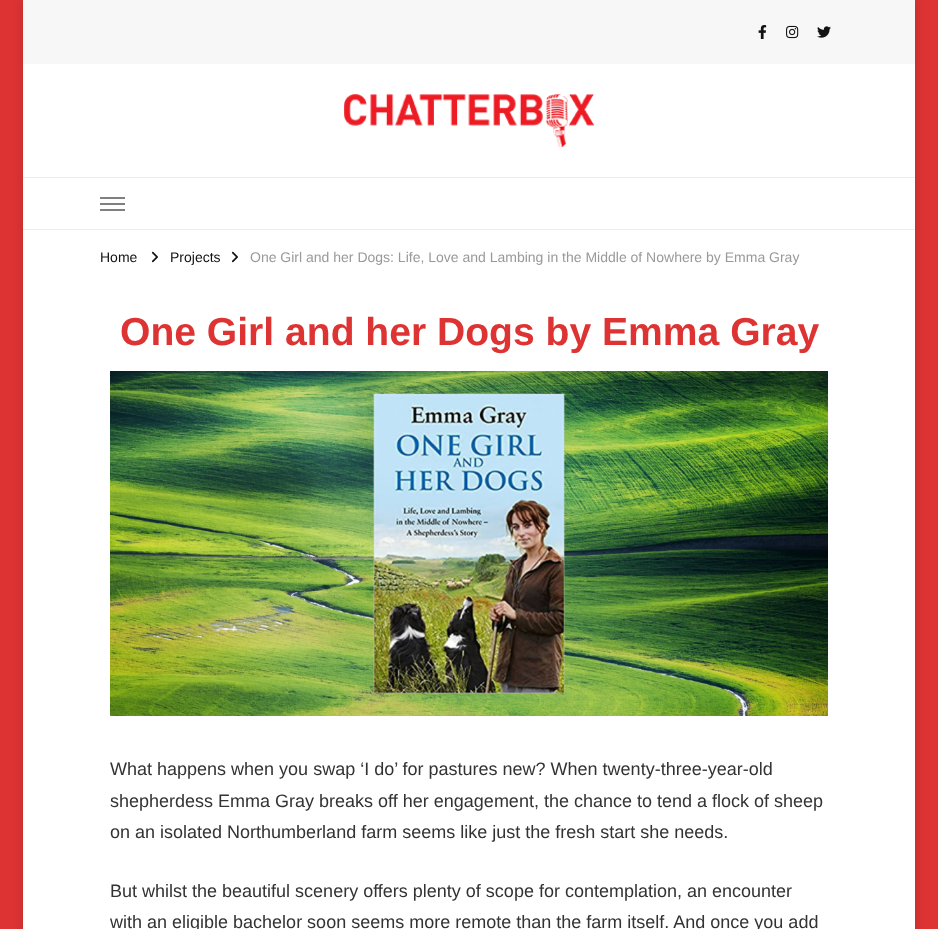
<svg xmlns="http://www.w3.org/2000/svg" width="938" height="929">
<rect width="100%" height="100%" fill="#d33"/>
<rect x="23" width="892" height="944" fill="#00000029" filter="blur(5px)"/>
<rect x="23" y="64" width="892" height="865" fill="#fff"/>
<rect x="23" width="892" height="64" fill="#f7f7f7"/>
<image x="758" y="25" width="9" height="14" href="media/1.png"/>
<image x="786" y="25" width="13" height="14" href="media/2.png"/>
<image x="817" y="26" width="14" height="12" href="media/3.png"/>
<image x="344" y="94" width="250" height="53" href="media/4.png"/>
<rect x="23" y="177" width="892" height="1" fill="#ededed"/>
<rect x="23" y="229" width="892" height="1" fill="#ededed"/>
<rect x="100" y="197" width="25" height="2" fill="#808080"/>
<rect x="100" y="203" width="25" height="2" fill="#808080"/>
<rect x="100" y="209" width="25" height="2" fill="#808080"/>
<text x="100" y="262" style="font-family:Liberation Sans;font-size:14px;fill:#121212">Home</text>
<image x="151" y="251" width="7" height="12" href="media/5.png"/>
<text x="170" y="262" style="font-family:Liberation Sans;font-size:14px;fill:#121212">Projects</text>
<image x="231" y="251" width="7" height="12" href="media/5.png"/>
<text x="250" y="262" style="font-family:Liberation Sans;font-size:14px;fill:#999">One Girl and her Dogs: Life, Love and Lambing in the Middle of Nowhere by Emma Gray</text>
<text x="120" y="345" style="font-family:Liberation Sans;font-size:39.1px;font-weight:bold;fill:#d33">One Girl and her Dogs by Emma Gray</text>
<image x="110" y="371" width="718" height="345" href="media/6.png"/>
<text x="110" y="775" style="font-family:Liberation Sans;font-size:18px;fill:#333">What happens when you swap ‘I do’ for pastures new? When twenty-three-year-old</text>
<text x="110" y="807" style="font-family:Liberation Sans;font-size:18px;fill:#333">shepherdess Emma Gray breaks off her engagement, the chance to tend a flock of sheep</text>
<text x="110" y="838" style="font-family:Liberation Sans;font-size:18px;fill:#333">on an isolated Northumberland farm seems like just the fresh start she needs.</text>
<text x="110" y="897" style="font-family:Liberation Sans;font-size:18px;fill:#333">But whilst the beautiful scenery offers plenty of scope for contemplation, an encounter</text>
<text x="110" y="928" style="font-family:Liberation Sans;font-size:18px;fill:#333">with an eligible bachelor soon seems more remote than the farm itself. And once you add</text>
</svg>
